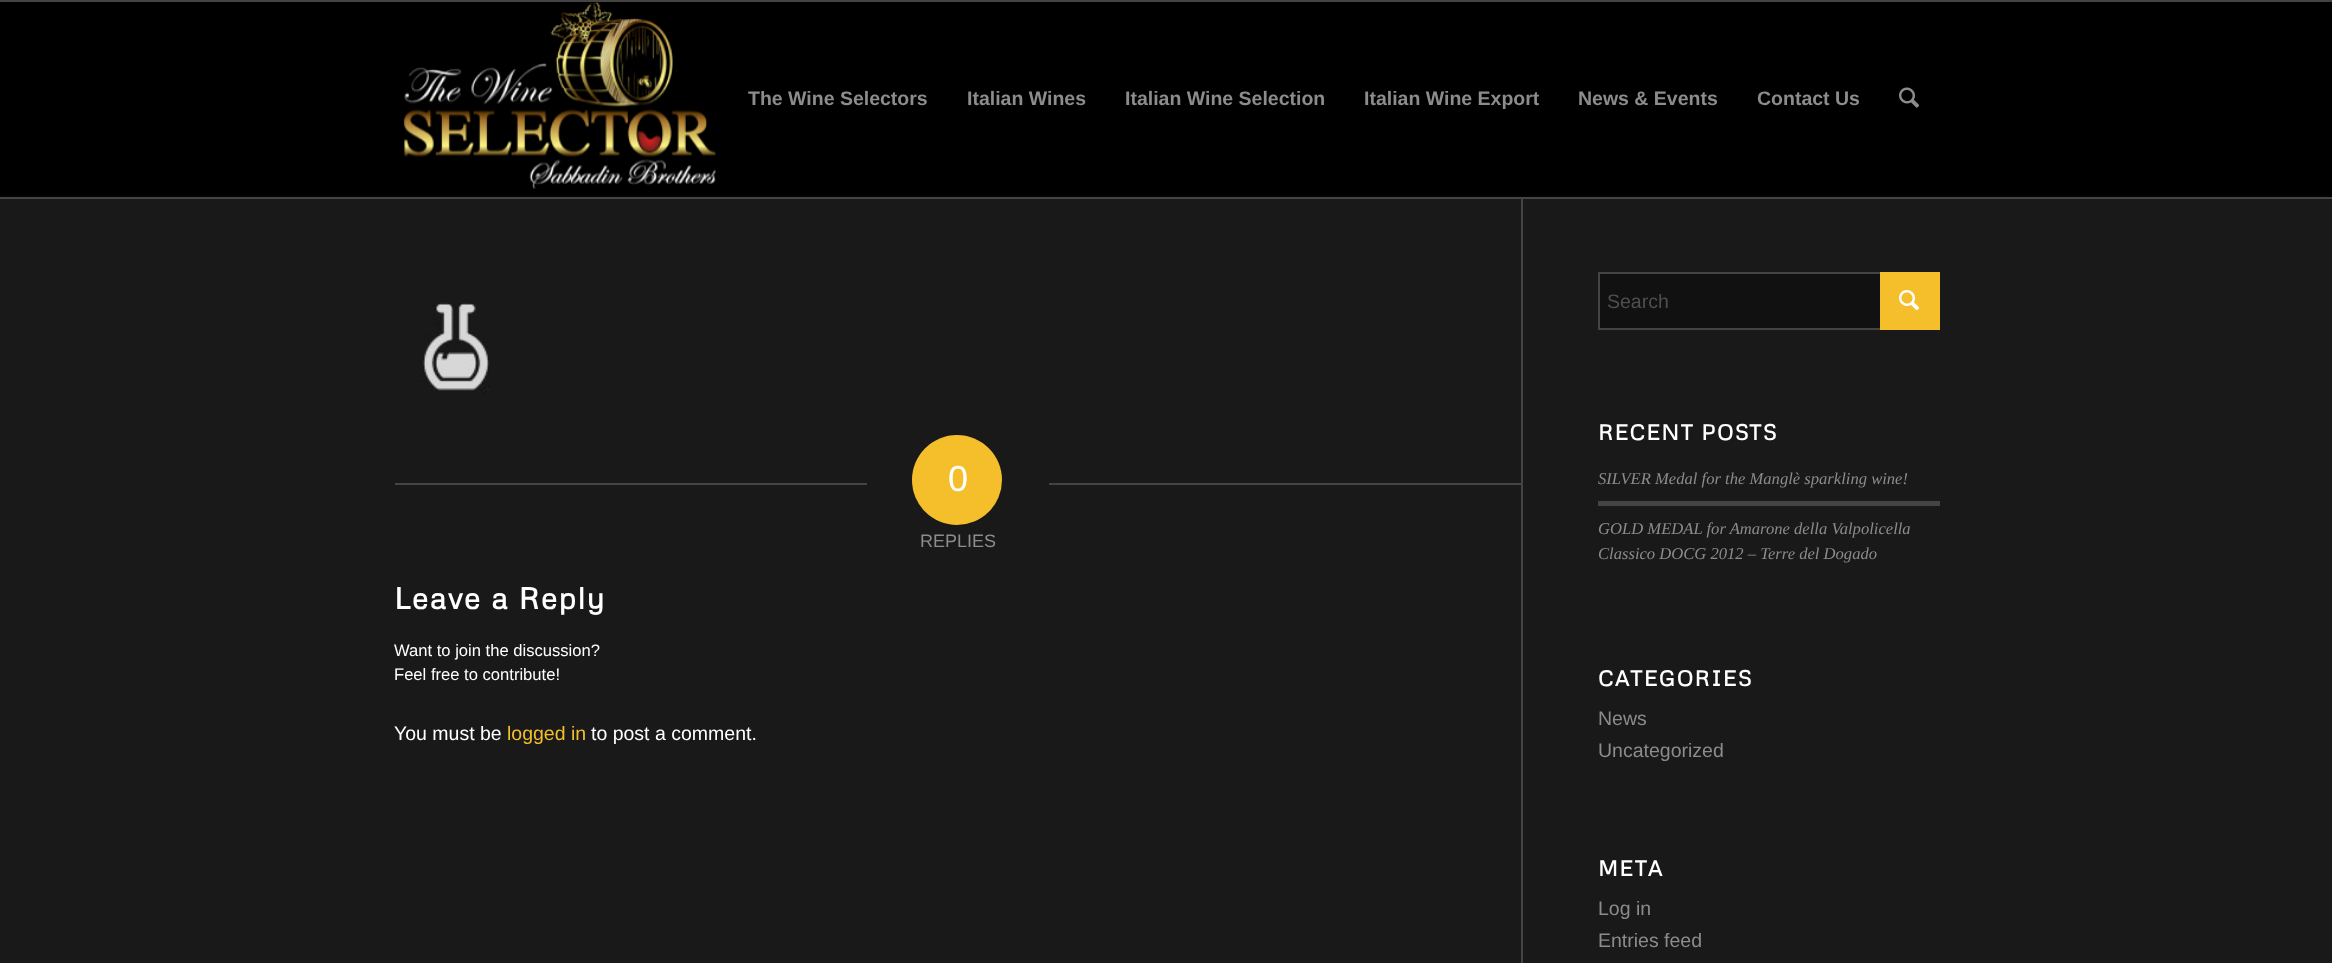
<svg xmlns="http://www.w3.org/2000/svg" width="2332" height="963">
<rect width="100%" height="100%" fill="#000"/>
<rect width="2332" height="2" fill="#444"/>
<rect y="199" width="2332" height="764" fill="#191919"/>
<rect x="1521" y="197" width="2" height="766" fill="#444"/>
<rect y="197" width="2332" height="2" fill="#444"/>
<image x="403" y="2" width="313" height="187" href="media/1.png"/>
<text x="748" y="105" style="font-family:Liberation Sans;font-size:19.5px;font-weight:bold;fill:#8c8c8c">The Wine Selectors</text>
<text x="967" y="105" style="font-family:Liberation Sans;font-size:19.5px;font-weight:bold;fill:#8c8c8c">Italian Wines</text>
<text x="1125" y="105" style="font-family:Liberation Sans;font-size:19.5px;font-weight:bold;fill:#8c8c8c">Italian Wine Selection</text>
<text x="1364" y="105" style="font-family:Liberation Sans;font-size:19.5px;font-weight:bold;fill:#8c8c8c">Italian Wine Export</text>
<text x="1578" y="105" style="font-family:Liberation Sans;font-size:19.5px;font-weight:bold;fill:#8c8c8c">News &amp; Events</text>
<text x="1757" y="105" style="font-family:Liberation Sans;font-size:19.5px;font-weight:bold;fill:#8c8c8c">Contact Us</text>
<image x="1899" y="87" width="21" height="21" href="media/2.png"/>
<rect y="195" width="2332" height="2" fill="#030303"/>
<image x="420" y="300" width="70" height="94" href="media/3.png"/>
<rect x="395" y="483" width="472" height="2" fill="#444"/>
<circle cx="957" cy="480" r="45" fill="#f5bf2c"/>
<text x="948" y="491" style="font-family:Liberation Sans;font-size:36px;fill:#fff">0</text>
<rect x="1049" y="483" width="472" height="2" fill="#444"/>
<text x="920" y="547" style="font-family:Liberation Sans;font-size:18px;fill:#8c8c8c">REPLIES</text>
<text x="394" y="609" style="font-family:Metrophobic;font-size:30px;font-weight:bold;letter-spacing:1.5px;fill:#fff">Leave a Reply</text>
<text x="394" y="656" style="font-family:Liberation Sans;font-size:16.6px;fill:#fff">Want to join the discussion?</text>
<text x="394" y="680" style="font-family:Liberation Sans;font-size:16.6px;fill:#fff">Feel free to contribute!</text>
<text x="394" y="740" style="font-family:Liberation Sans;font-size:19.5px;fill:#fff">You must be</text>
<text x="507" y="740" style="font-family:Liberation Sans;font-size:19.5px;fill:#f5bf2c">logged in</text>
<text x="591" y="740" style="font-family:Liberation Sans;font-size:19.5px;fill:#fff">to post a comment.</text>
<rect x="1600" y="274" width="280" height="54" fill="#111"/>
<rect x="1599" y="273" width="340" height="56" fill="none" stroke="#444" stroke-width="2"/>
<text x="1607" y="308" style="font-family:Liberation Sans;font-size:19.5px;fill:#4f4f4f">Search</text>
<rect x="1880" y="272" width="60" height="58" fill="#f5bf2c"/>
<image x="1899" y="290" width="21" height="21" href="media/4.png"/>
<text x="1598" y="440" style="font-family:Metrophobic;font-size:21.5px;font-weight:bold;letter-spacing:1.5px;fill:#fff">RECENT POSTS</text>
<text x="1598" y="484" style="font-family:Liberation Serif;font-size:16.6px;font-style:italic;fill:#8c8c8c">SILVER Medal for the Manglè sparkling wine!</text>
<rect x="1598" y="501" width="342" height="5" fill="#444"/>
<text x="1598" y="534" style="font-family:Liberation Serif;font-size:16.6px;font-style:italic;fill:#8c8c8c">GOLD MEDAL for Amarone della Valpolicella</text>
<text x="1598" y="559" style="font-family:Liberation Serif;font-size:16.6px;font-style:italic;fill:#8c8c8c">Classico DOCG 2012 – Terre del Dogado</text>
<text x="1598" y="686" style="font-family:Metrophobic;font-size:21.5px;font-weight:bold;letter-spacing:1.5px;fill:#fff">CATEGORIES</text>
<text x="1598" y="725" style="font-family:Liberation Sans;font-size:19.5px;fill:#8c8c8c">News</text>
<text x="1598" y="757" style="font-family:Liberation Sans;font-size:19.5px;fill:#8c8c8c">Uncategorized</text>
<text x="1598" y="876" style="font-family:Metrophobic;font-size:21.5px;font-weight:bold;letter-spacing:1.5px;fill:#fff">META</text>
<text x="1598" y="915" style="font-family:Liberation Sans;font-size:19.5px;fill:#8c8c8c">Log in</text>
<text x="1598" y="947" style="font-family:Liberation Sans;font-size:19.5px;fill:#8c8c8c">Entries feed</text>
</svg>
